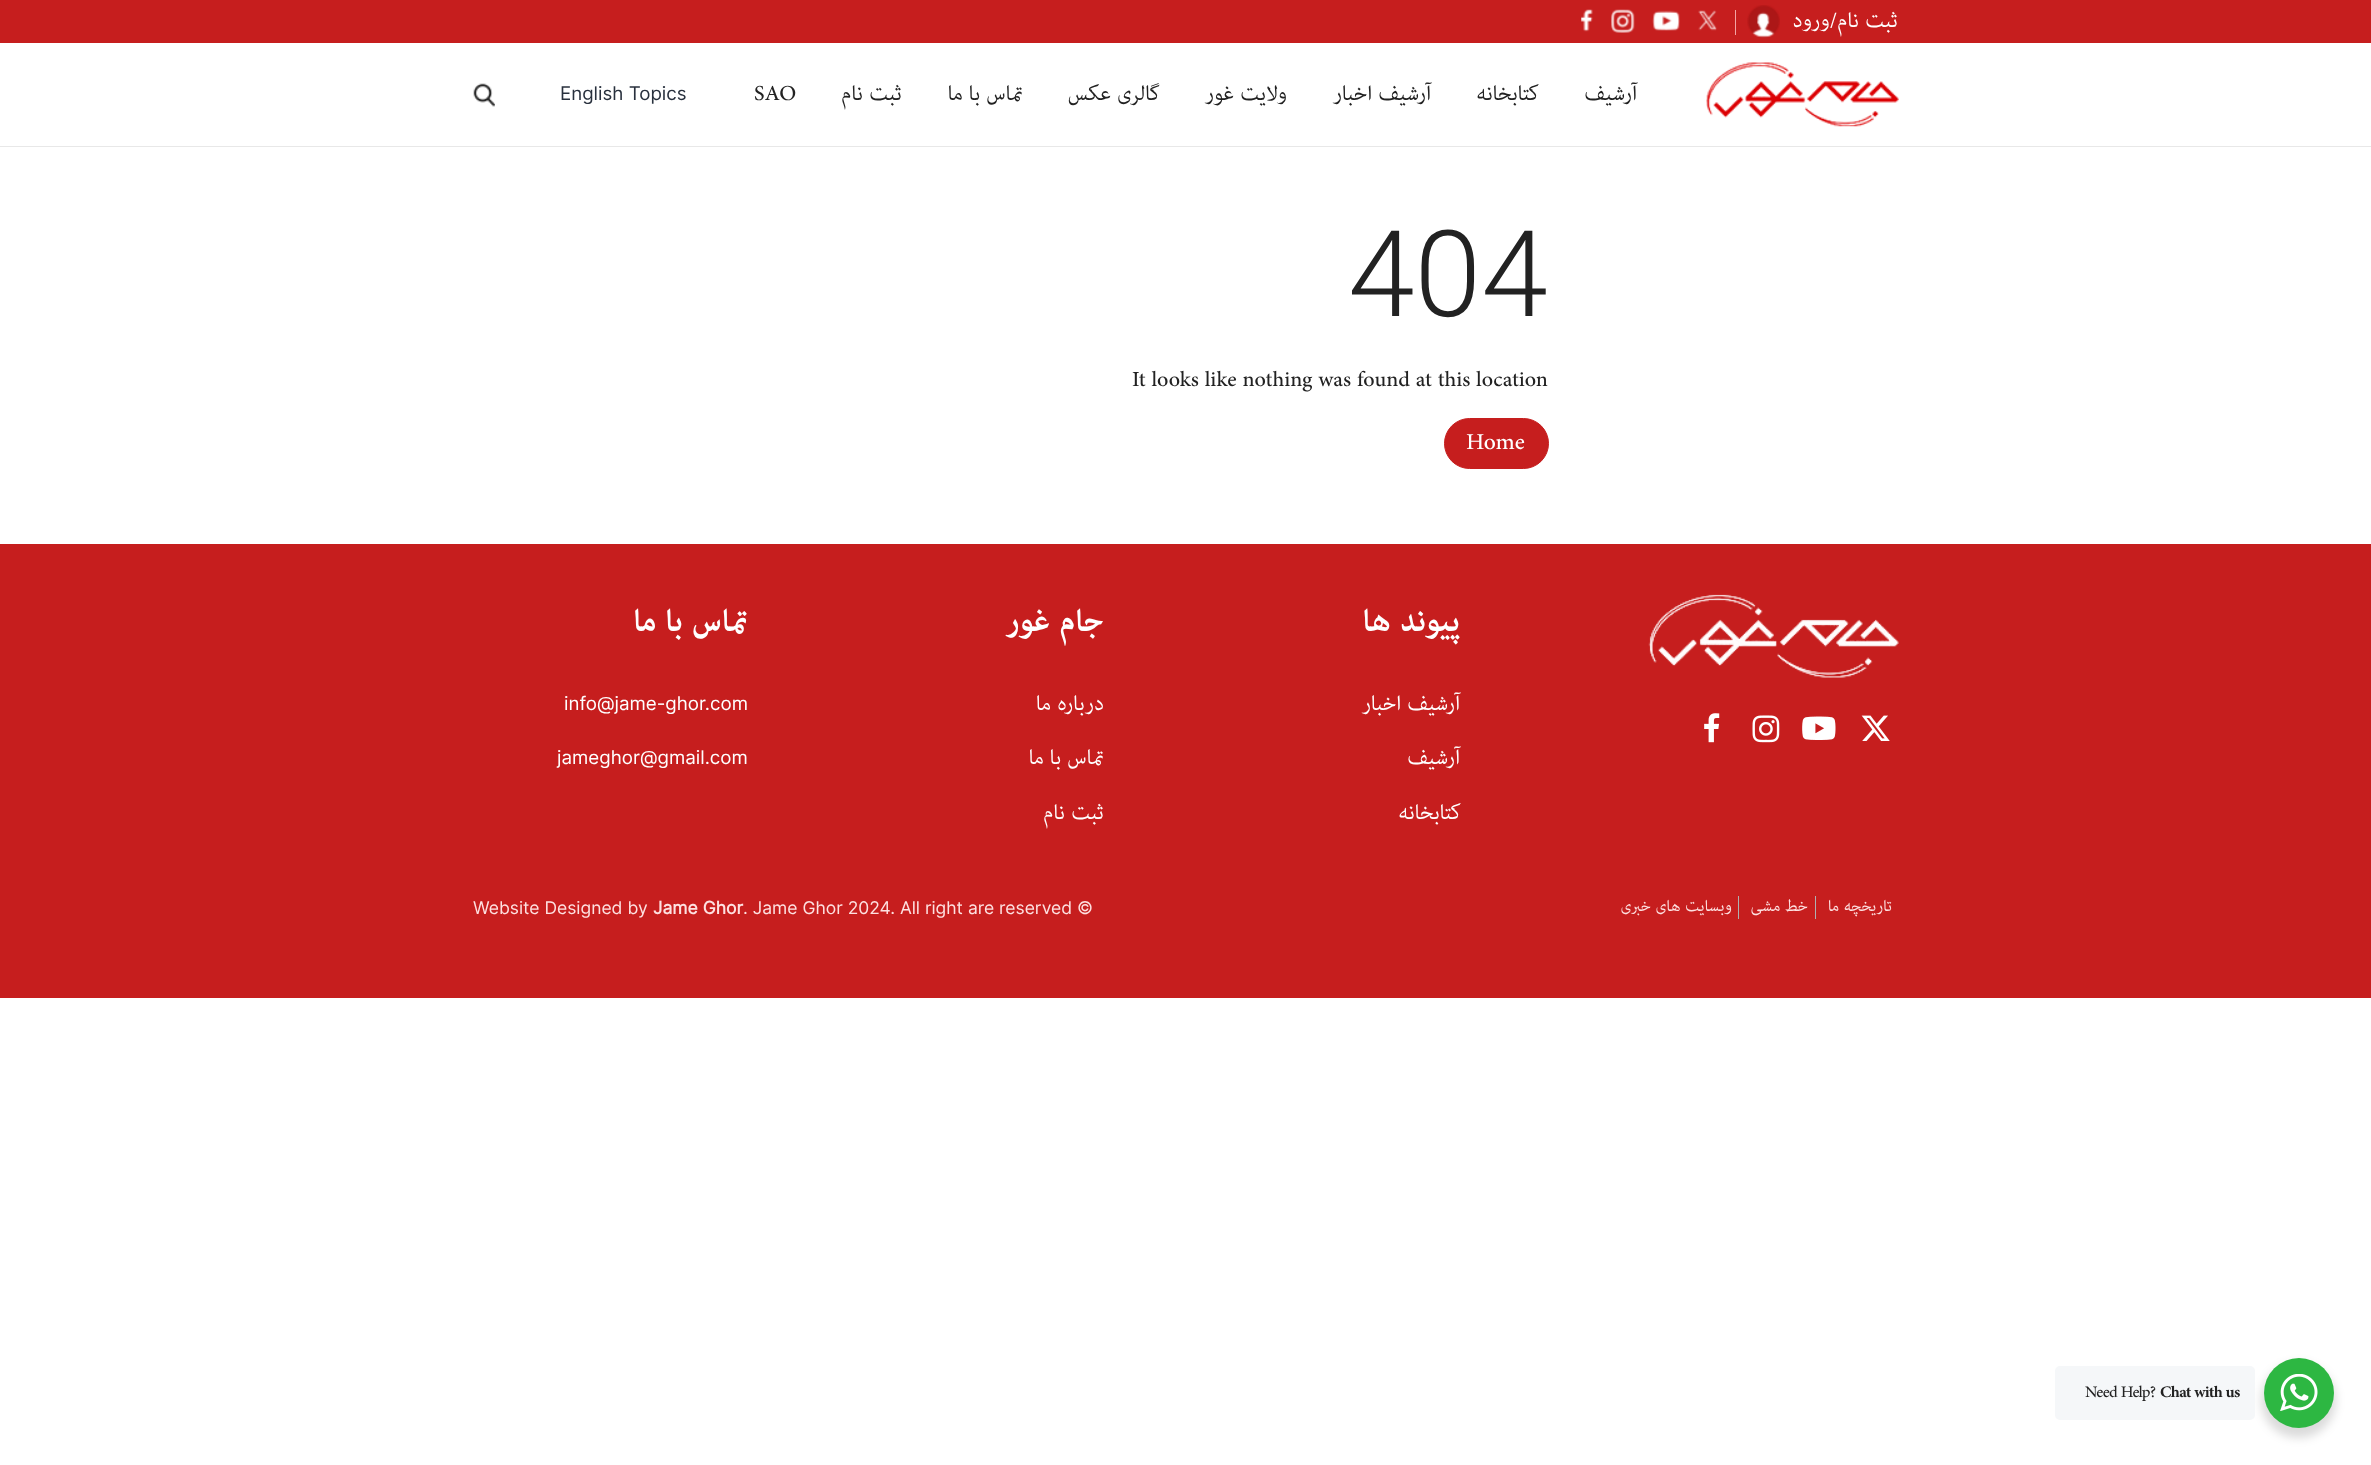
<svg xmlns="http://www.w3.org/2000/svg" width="2371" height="1465">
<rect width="100%" height="100%" fill="#fff"/>
<rect width="2371" height="43" fill="#c61e1e"/>
<image x="1581" y="9" width="12" height="23" href="media/1.png"/>
<image x="1611" y="9" width="24" height="24" href="media/2.png"/>
<image x="1652" y="10" width="28" height="21" href="media/3.png"/>
<image x="1698" y="10" width="19" height="21" href="media/4.png"/>
<rect x="1735" y="10" width="1" height="25" fill="#f3a4a4"/>
<image x="1747" y="5" width="33" height="33" href="media/5.png"/>
<text x="1898" y="27" style="font-family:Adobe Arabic;font-size:30px;direction:rtl;fill:#fff">ثبت نام/ورود</text>
<rect y="146" width="2371" height="1" fill="#e8e8e8"/>
<image x="473" y="83" width="22" height="24" href="media/6.png"/>
<text x="560" y="100" style="font-family:Inter;font-size:18.75px;fill:#28303d">English Topics</text>
<text x="754" y="100" style="font-family:Adobe Arabic;font-size:30px;fill:#222">SAO</text>
<text x="902" y="100" style="font-family:Adobe Arabic;font-size:30px;direction:rtl;fill:#222">ثبت نام</text>
<text x="1023" y="100" style="font-family:Adobe Arabic;font-size:30px;direction:rtl;fill:#222">تماس با ما</text>
<text x="1160" y="100" style="font-family:Adobe Arabic;font-size:30px;direction:rtl;fill:#222">گالری عکس</text>
<text x="1287" y="100" style="font-family:Adobe Arabic;font-size:30px;direction:rtl;fill:#222">ولایت غور</text>
<text x="1432" y="100" style="font-family:Adobe Arabic;font-size:30px;direction:rtl;fill:#222">آرشیف اخبار</text>
<text x="1539" y="100" style="font-family:Adobe Arabic;font-size:30px;direction:rtl;fill:#222">کتابخانه</text>
<text x="1638" y="100" style="font-family:Adobe Arabic;font-size:30px;direction:rtl;fill:#222">آرشیف</text>
<image x="1706" y="62" width="193" height="65" href="media/7.png"/>
<text x="1348" y="316" style="font-family:Roboto;font-size:120px;font-weight:300;fill:#222">404</text>
<text x="1132" y="386" style="font-family:Adobe Arabic;font-size:30px;fill:#222">It looks like nothing was found at this location</text>
<rect x="1444.5" y="418.5" width="104" height="50" rx="25" fill="#c61e1e" stroke="#c61e1e"/>
<text x="1466" y="449" style="font-family:Adobe Arabic;font-size:32px;fill:#fff">Home</text>
<rect y="544" width="2371" height="454" fill="#c61e1e"/>
<text x="748" y="631" style="font-family:Adobe Arabic;font-size:45px;font-weight:bold;direction:rtl;fill:#fff">تماس با ما</text>
<text x="564" y="710" style="font-family:Inter;font-size:18.75px;fill:#fff">info@jame-ghor.com</text>
<text x="557" y="764" style="font-family:Inter;font-size:18.75px;fill:#fff">jameghor@gmail.com</text>
<text x="1104" y="631" style="font-family:Adobe Arabic;font-size:45px;font-weight:bold;direction:rtl;fill:#fff">جام غور</text>
<text x="1104" y="710" style="font-family:Adobe Arabic;font-size:30px;direction:rtl;fill:#fff">درباره ما</text>
<text x="1104" y="764" style="font-family:Adobe Arabic;font-size:30px;direction:rtl;fill:#fff">تماس با ما</text>
<text x="1104" y="819" style="font-family:Adobe Arabic;font-size:30px;direction:rtl;fill:#fff">ثبت نام</text>
<text x="1461" y="631" style="font-family:Adobe Arabic;font-size:45px;font-weight:bold;direction:rtl;fill:#fff">پیوند ها</text>
<text x="1461" y="710" style="font-family:Adobe Arabic;font-size:30px;direction:rtl;fill:#fff">آرشیف اخبار</text>
<text x="1461" y="764" style="font-family:Adobe Arabic;font-size:30px;direction:rtl;fill:#fff">آرشیف</text>
<text x="1461" y="819" style="font-family:Adobe Arabic;font-size:30px;direction:rtl;fill:#fff">کتابخانه</text>
<image x="1648" y="594" width="251" height="84" href="media/8.png"/>
<image x="1704" y="713" width="16" height="30" href="media/9.png"/>
<image x="1752" y="715" width="28" height="28" href="media/10.png"/>
<image x="1802" y="716" width="34" height="24" href="media/11.png"/>
<image x="1861" y="715" width="29" height="26" href="media/12.png"/>
<text x="473" y="914" style="font-family:Inter;font-size:17.5px;fill:#fee1e1">Website Designed by</text>
<text x="653" y="914" style="font-family:Inter;font-size:17.5px;font-weight:bold;fill:#fee1e1">Jame Ghor</text>
<text x="743" y="914" style="font-family:Inter;font-size:17.5px;fill:#fee1e1">. Jame Ghor 2024. All right are reserved ©</text>
<rect x="1738" y="896" width="1" height="23" fill="#afb0b1"/>
<text x="1732" y="911" style="font-family:Adobe Arabic;font-size:22.5px;direction:rtl;fill:#fee1e1">وبسایت های خبری</text>
<rect x="1815" y="896" width="1" height="23" fill="#afb0b1"/>
<text x="1808" y="911" style="font-family:Adobe Arabic;font-size:22.5px;direction:rtl;fill:#fee1e1">خط مشی</text>
<text x="1892" y="911" style="font-family:Adobe Arabic;font-size:22.5px;direction:rtl;fill:#fee1e1">تاریخچه ما</text>
<rect x="2261" y="1363" width="75" height="75" rx="37.5" fill="#00000024" filter="blur(5px)"/>
<rect x="2055" y="1366" width="200" height="54" rx="5" fill="#f5f7f9"/>
<text x="2085" y="1397" style="font-family:Adobe Arabic;font-size:22.5px;letter-spacing:-0.75px;fill:#222">Need Help?</text>
<text x="2160" y="1397" style="font-family:Adobe Arabic;font-size:22.5px;font-weight:bold;letter-spacing:-0.75px;fill:#222">Chat with us</text>
<circle cx="2299" cy="1393" r="35" fill="#2db742"/>
<image x="2280" y="1374" width="38" height="37" href="media/13.png"/>
</svg>
